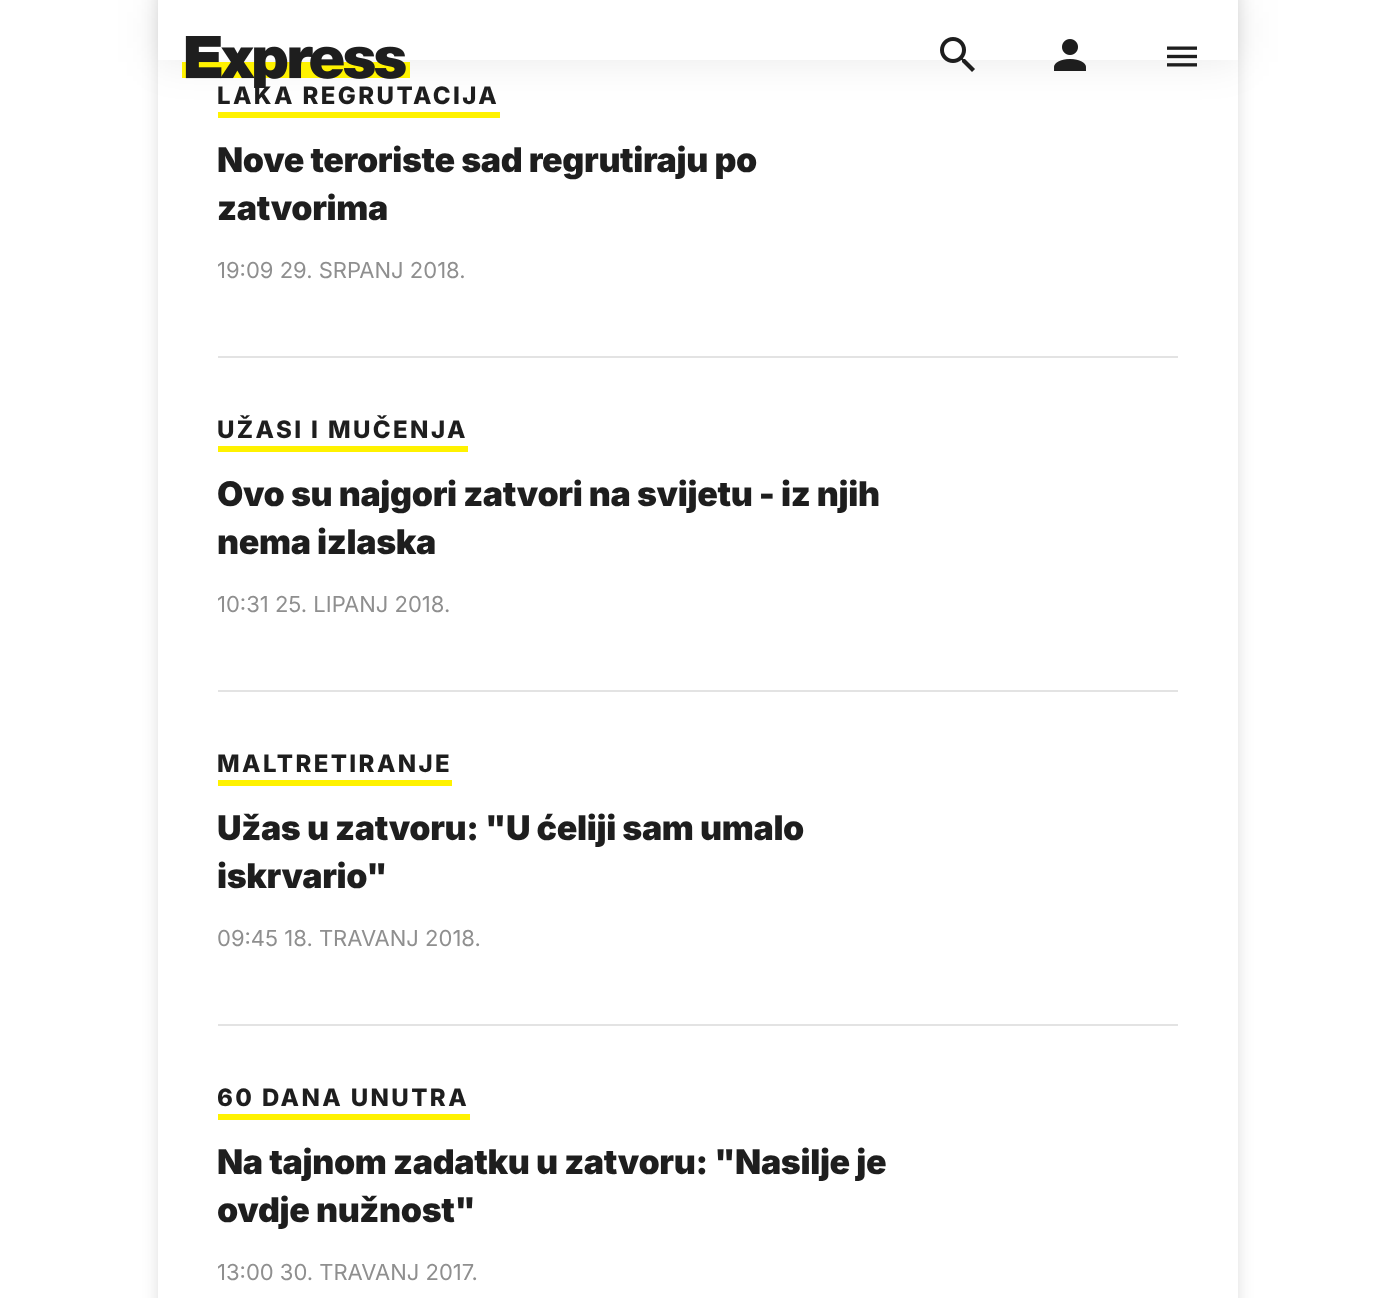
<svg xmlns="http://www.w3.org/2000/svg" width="1393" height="1298">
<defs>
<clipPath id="clip1"><path d="M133 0h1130v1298h-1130zm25-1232h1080v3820h-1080z" clip-rule="evenodd"/></clipPath>
</defs>
<rect width="100%" height="100%" fill="#fff"/>
<g clip-path="url(#clip1)">
<rect x="158" y="-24" width="1080" height="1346" fill="#00000021" filter="blur(8px)"/>
</g>
<rect x="218" y="112" width="282" height="6" fill="#fff200"/>
<rect x="156" y="-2" width="1084" height="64" fill="#00000014" filter="blur(21px)"/>
<rect x="158" width="1080" height="60" fill="#fff"/>
<text x="217" y="104" style="font-family:Inter;font-size:24px;font-weight:800;letter-spacing:2.4px;fill:#1e1e1e">LAKA REGRUTACIJA</text>
<image x="182" y="36" width="228" height="52" href="media/1.png"/>
<image x="940" y="37" width="35" height="35" href="media/2.png"/>
<image x="1054" y="39" width="32" height="32" href="media/3.png"/>
<image x="1167" y="46" width="30" height="21" href="media/4.png"/>
<rect x="218" y="356" width="960" height="2" fill="#e3e3e3"/>
<text x="217" y="172" style="font-family:Inter;font-size:34px;font-weight:900;letter-spacing:-0.35px;fill:#1e1e1e">Nove teroriste sad regrutiraju po</text>
<text x="217" y="220" style="font-family:Inter;font-size:34px;font-weight:900;letter-spacing:-0.35px;fill:#1e1e1e">zatvorima</text>
<text x="217" y="278" style="font-family:Inter;font-size:22px;fill:#8f8f8f">19:09 29. SRPANJ 2018.</text>
<rect x="218" y="690" width="960" height="2" fill="#e3e3e3"/>
<rect x="218" y="446" width="250" height="6" fill="#fff200"/>
<text x="217" y="438" style="font-family:Inter;font-size:24px;font-weight:800;letter-spacing:2.4px;fill:#1e1e1e">UŽASI I MUČENJA</text>
<text x="217" y="506" style="font-family:Inter;font-size:34px;font-weight:900;letter-spacing:-0.35px;fill:#1e1e1e">Ovo su najgori zatvori na svijetu - iz njih</text>
<text x="217" y="554" style="font-family:Inter;font-size:34px;font-weight:900;letter-spacing:-0.35px;fill:#1e1e1e">nema izlaska</text>
<text x="217" y="612" style="font-family:Inter;font-size:22px;fill:#8f8f8f">10:31 25. LIPANJ 2018.</text>
<rect x="218" y="1024" width="960" height="2" fill="#e3e3e3"/>
<rect x="218" y="780" width="234" height="6" fill="#fff200"/>
<text x="217" y="772" style="font-family:Inter;font-size:24px;font-weight:800;letter-spacing:2.4px;fill:#1e1e1e">MALTRETIRANJE</text>
<text x="217" y="840" style="font-family:Inter;font-size:34px;font-weight:900;letter-spacing:-0.35px;fill:#1e1e1e">Užas u zatvoru: "U ćeliji sam umalo</text>
<text x="217" y="888" style="font-family:Inter;font-size:34px;font-weight:900;letter-spacing:-0.35px;fill:#1e1e1e">iskrvario"</text>
<text x="217" y="946" style="font-family:Inter;font-size:22px;fill:#8f8f8f">09:45 18. TRAVANJ 2018.</text>
<rect x="218" y="1114" width="252" height="6" fill="#fff200"/>
<text x="217" y="1106" style="font-family:Inter;font-size:24px;font-weight:800;letter-spacing:2.4px;fill:#1e1e1e">60 DANA UNUTRA</text>
<text x="217" y="1174" style="font-family:Inter;font-size:34px;font-weight:900;letter-spacing:-0.35px;fill:#1e1e1e">Na tajnom zadatku u zatvoru: "Nasilje je</text>
<text x="217" y="1222" style="font-family:Inter;font-size:34px;font-weight:900;letter-spacing:-0.35px;fill:#1e1e1e">ovdje nužnost"</text>
<text x="217" y="1280" style="font-family:Inter;font-size:22px;fill:#8f8f8f">13:00 30. TRAVANJ 2017.</text>
</svg>
